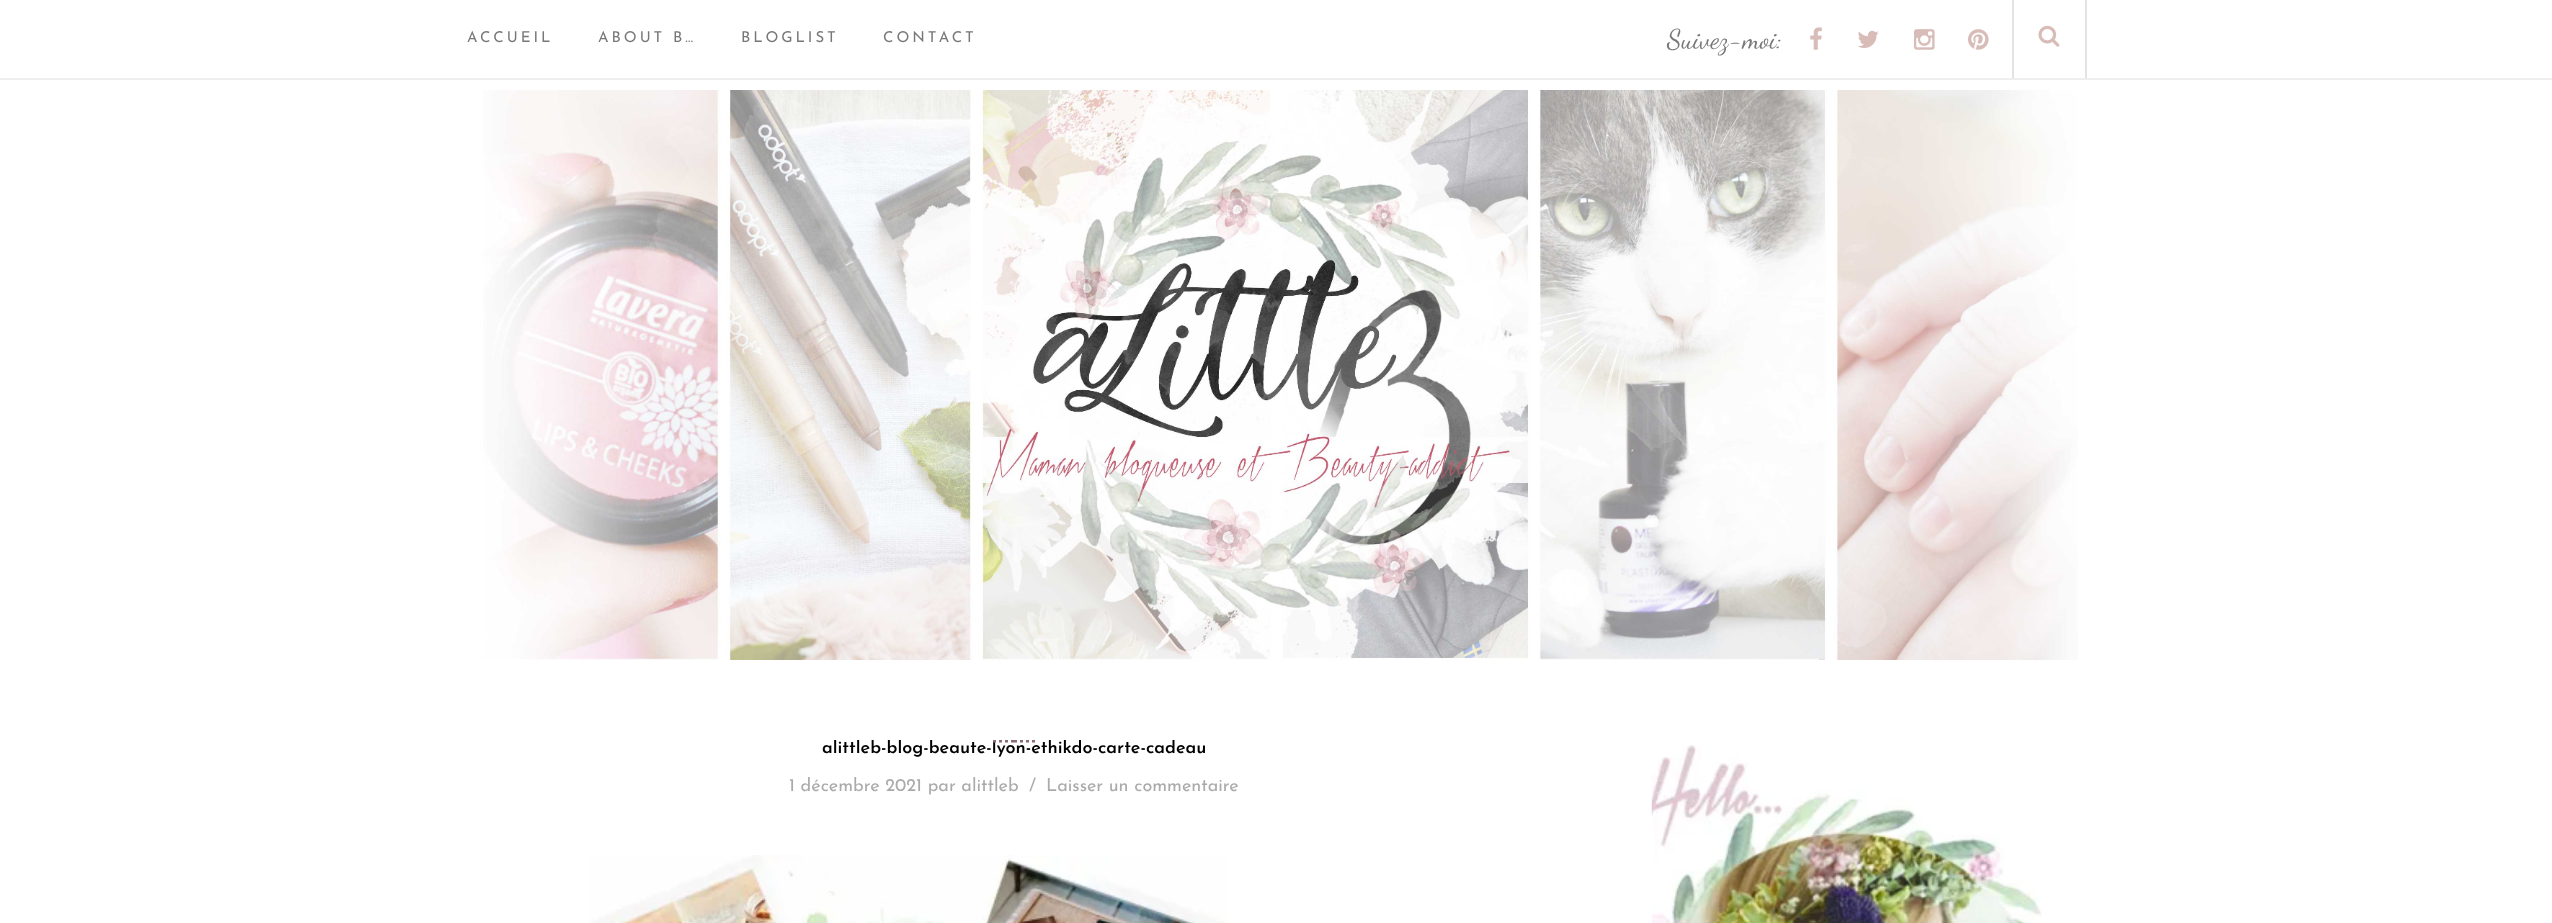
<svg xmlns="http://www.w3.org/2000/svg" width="2552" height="923">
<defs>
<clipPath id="clip1"><rect x="467" y="740" width="1620" height="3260"/></clipPath>
</defs>
<rect width="100%" height="100%" fill="#fff"/>
<rect y="78" width="2552" height="2" fill="#eee"/>
<text x="467" y="42" style="font-family:Josefin Sans;font-size:15px;letter-spacing:3px;fill:#777">ACCUEIL</text>
<text x="598" y="42" style="font-family:Josefin Sans;font-size:15px;letter-spacing:3px;fill:#777">ABOUT B…</text>
<text x="741" y="42" style="font-family:Josefin Sans;font-size:15px;letter-spacing:3px;fill:#777">BLOGLIST</text>
<text x="883" y="42" style="font-family:Josefin Sans;font-size:15px;letter-spacing:3px;fill:#777">CONTACT</text>
<text x="1667" y="48" style="font-family:Dancing Script;font-size:27px;fill:#777">Suivez-moi:</text>
<image x="1810" y="27" width="12" height="23" href="media/1.png"/>
<image x="1858" y="30" width="21" height="18" href="media/2.png"/>
<image x="1914" y="29" width="21" height="21" href="media/3.png"/>
<image x="1968" y="29" width="21" height="21" href="media/4.png"/>
<rect x="2085" width="2" height="78" fill="#e3e3e3"/>
<rect x="2012" width="2" height="78" fill="#e3e3e3"/>
<image x="2038" y="25" width="22" height="22" href="media/5.png"/>
<image x="483" y="90" width="1595" height="570" href="media/6.png"/>
<g clip-path="url(#clip1)">
<text x="822" y="753" style="font-family:Josefin Sans;font-size:18px;font-weight:600;fill:#000">alittleb-blog-beaute-lyon-ethikdo-carte-cadeau</text>
<path d="M1014 741h3m3 0h3m3 0h3m3 0h3m-42 0h3m3 0h3m3 0h3m3 0h3" fill="none" stroke="#896b72" stroke-width="3"/>
</g>
<text x="789" y="791" style="font-family:Josefin Sans;font-size:18px;fill:#aaa">1 décembre 2021 par alittleb</text>
<text x="1029" y="791" style="font-family:Josefin Sans;font-size:18px;fill:#aaa">/</text>
<text x="1046" y="791" style="font-family:Josefin Sans;font-size:18px;fill:#aaa">Laisser un commentaire</text>
<image x="589" y="855" width="638" height="68" href="media/7.png"/>
<image x="1651" y="745" width="391" height="178" href="media/8.png"/>
</svg>
